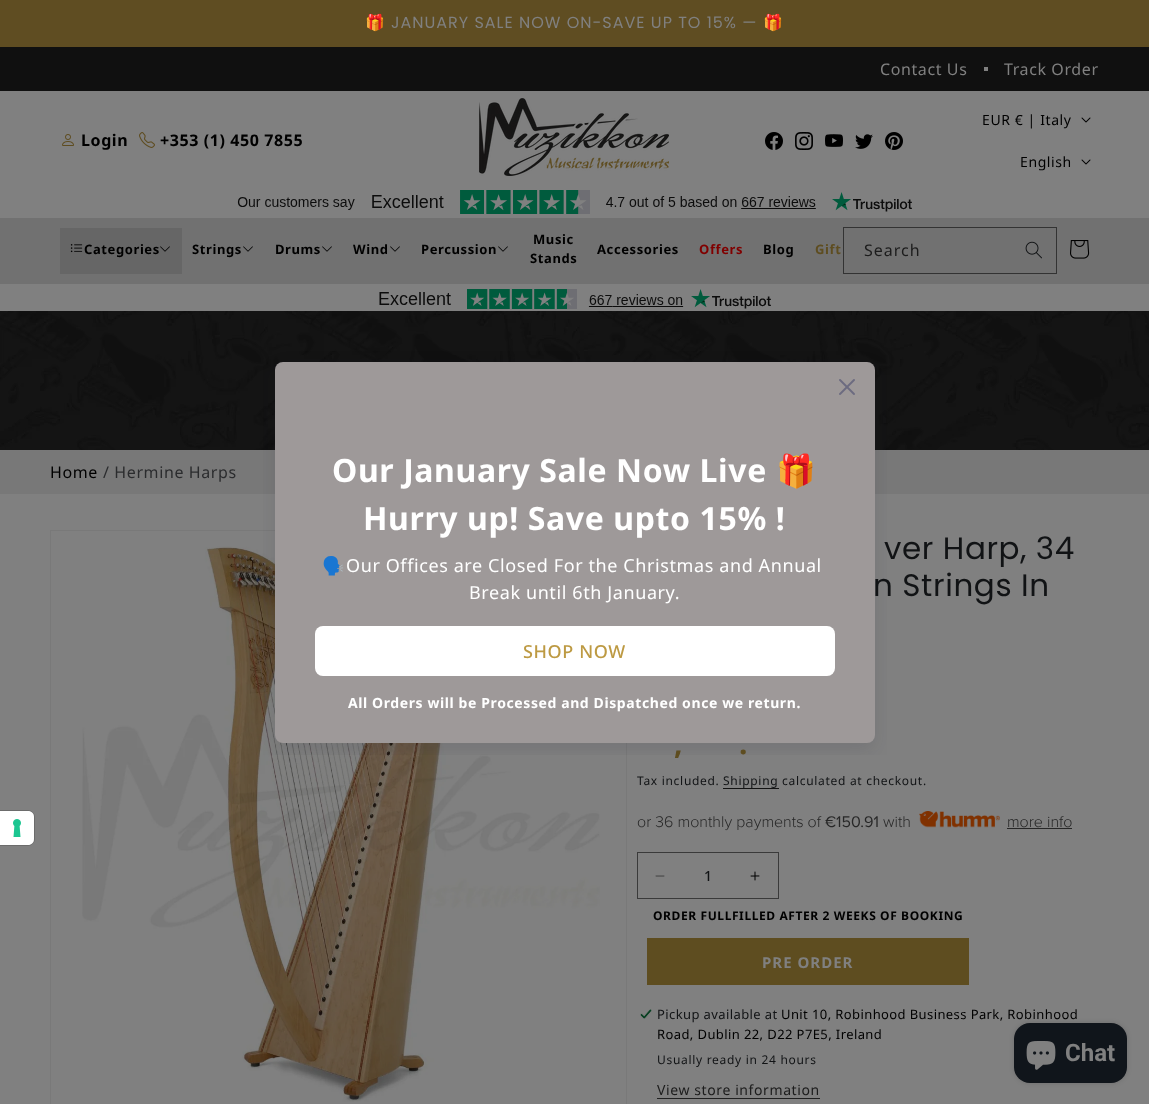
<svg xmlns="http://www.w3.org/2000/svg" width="1149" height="1104">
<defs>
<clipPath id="clip1"><rect x="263" y="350" width="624" height="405"/></clipPath>
</defs>
<rect width="100%" height="100%" fill="#808080"/>
<rect width="1149" height="47" fill="#5f4d22"/>
<text x="365" y="28" style="font-family:Noto Color Emoji;font-size:16px;letter-spacing:1px;fill:#808080">🎁</text>
<text x="391" y="28" style="font-family:Poppins;font-size:16px;letter-spacing:1px;fill:#808080">JANUARY SALE NOW ON-SAVE UP TO 15% —</text>
<text x="763" y="28" style="font-family:Noto Color Emoji;font-size:16px;letter-spacing:1px;fill:#808080">🎁</text>
<rect y="47" width="1149" height="44" fill="#101010"/>
<text x="880" y="75" style="font-family:Noto Sans;font-size:16px;letter-spacing:0.6px;fill:#808080">Contact Us</text>
<rect x="984" y="67" width="4" height="4" fill="#808080"/>
<text x="1004" y="75" style="font-family:Noto Sans;font-size:16px;letter-spacing:0.6px;fill:#808080">Track Order</text>
<image x="62" y="134" width="12" height="12" href="media/1.png"/>
<text x="81" y="146" style="font-family:Noto Sans;font-size:16px;font-weight:bold;letter-spacing:0.6px;fill:#000">Login</text>
<image x="139" y="132" width="16" height="16" href="media/2.png"/>
<text x="160" y="146" style="font-family:Noto Sans;font-size:16px;font-weight:bold;letter-spacing:0.6px;fill:#000">+353 (1) 450 7855</text>
<image x="479" y="98" width="190" height="78" href="media/3.png"/>
<image x="765" y="132" width="18" height="18" href="media/4.png"/>
<image x="795" y="132" width="18" height="18" href="media/5.png"/>
<image x="825" y="134" width="18" height="13" href="media/6.png"/>
<image x="855" y="134" width="18" height="15" href="media/7.png"/>
<image x="885" y="132" width="18" height="18" href="media/8.png"/>
<text x="982" y="125" style="font-family:Noto Sans;font-size:14px;letter-spacing:0.6px;fill:#000">EUR € | Italy</text>
<image x="1081" y="117" width="10" height="6" href="media/9.png"/>
<text x="1020" y="167" style="font-family:Noto Sans;font-size:14px;letter-spacing:0.6px;fill:#000">English</text>
<image x="1081" y="159" width="10" height="6" href="media/9.png"/>
<image x="237" y="190" width="675" height="24" href="media/10.png"/>
<rect y="218" width="1149" height="66" fill="#717171"/>
<rect x="60" y="228" width="122" height="46" fill="#666"/>
<image x="70" y="244" width="13" height="9" href="media/11.png"/>
<text x="84" y="254" style="font-family:Noto Sans;font-size:13px;font-weight:bold;letter-spacing:0.6px;fill:#000">Categories</text>
<image x="160" y="246" width="10" height="6" href="media/12.png"/>
<text x="192" y="254" style="font-family:Noto Sans;font-size:13px;font-weight:bold;letter-spacing:0.6px;fill:#000">Strings</text>
<image x="243" y="246" width="10" height="6" href="media/13.png"/>
<text x="275" y="254" style="font-family:Noto Sans;font-size:13px;font-weight:bold;letter-spacing:0.6px;fill:#000">Drums</text>
<image x="322" y="246" width="10" height="6" href="media/13.png"/>
<text x="353" y="254" style="font-family:Noto Sans;font-size:13px;font-weight:bold;letter-spacing:0.6px;fill:#000">Wind</text>
<image x="390" y="246" width="10" height="6" href="media/13.png"/>
<text x="421" y="254" style="font-family:Noto Sans;font-size:13px;font-weight:bold;letter-spacing:0.6px;fill:#000">Percussion</text>
<image x="498" y="246" width="10" height="6" href="media/13.png"/>
<text x="533" y="244" style="font-family:Noto Sans;font-size:13px;font-weight:bold;letter-spacing:0.6px;fill:#000">Music</text>
<text x="530" y="263" style="font-family:Noto Sans;font-size:13px;font-weight:bold;letter-spacing:0.6px;fill:#000">Stands</text>
<text x="597" y="254" style="font-family:Noto Sans;font-size:13px;font-weight:bold;letter-spacing:0.6px;fill:#000">Accessories</text>
<text x="699" y="254" style="font-family:Noto Sans;font-size:13px;font-weight:bold;letter-spacing:0.6px;fill:#800000">Offers</text>
<text x="763" y="254" style="font-family:Noto Sans;font-size:13px;font-weight:bold;letter-spacing:0.6px;fill:#000">Blog</text>
<text x="815" y="254" style="font-family:Noto Sans;font-size:13px;font-weight:bold;letter-spacing:0.6px;fill:#5e4d20">Gift</text>
<image x="1025" y="241" width="17" height="18" href="media/14.png"/>
<rect x="843.5" y="227.5" width="213" height="46" fill="none" stroke="#333"/>
<text x="864" y="256" style="font-family:Noto Sans;font-size:16px;letter-spacing:1px;fill:#1c1c1c">Search</text>
<rect x="842" y="275" width="216" height="1" fill="#808080"/>
<path d="M1058 275v1l-1-1z" fill="#737373"/>
<path d="M1058 276h-216l1-1h214z" fill="#0000001a"/>
<path d="M842 276v-1h1z" fill="#6d6d6d"/>
<image x="1070" y="240" width="20" height="19" href="media/15.png"/>
<image x="379" y="289" width="392" height="20" href="media/16.png"/>
<image x="0" y="311" width="1149" height="139" href="media/19.png"/>
<rect y="450" width="1149" height="44" fill="#787878"/>
<rect x="50.5" y="530.5" width="576" height="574" fill="none" stroke="#797979"/>
<image x="82" y="546" width="518" height="556" href="media/20.png"/>
<g clip-path="url(#clip1)">
<rect x="275" y="370" width="600" height="381" rx="8" fill="#1211271a" filter="blur(10px)"/>
</g>
<rect x="275" y="362" width="600" height="381" rx="8" fill="#9e9999"/>
<image x="839" y="379" width="16" height="16" href="media/17.png"/>
<text x="332" y="482" style="font-family:Noto Sans;font-size:32px;font-weight:bold;letter-spacing:0.6px;fill:#fff">Our January Sale Now Live</text>
<text x="776" y="482" style="font-family:Noto Color Emoji;font-size:32px;font-weight:bold;letter-spacing:0.6px;fill:#fff">🎁</text>
<text x="363" y="530" style="font-family:Noto Sans;font-size:32px;font-weight:bold;letter-spacing:0.6px;fill:#fff">Hurry up! Save upto 15% !</text>
<text x="322" y="572" style="font-family:Noto Color Emoji;font-size:18px;letter-spacing:0.6px;fill:#fff">🗣️</text>
<text x="346" y="572" style="font-family:Noto Sans;font-size:18px;letter-spacing:0.6px;fill:#fff">Our Offices are Closed For the Christmas and Annual</text>
<text x="469" y="599" style="font-family:Noto Sans;font-size:18px;letter-spacing:0.6px;fill:#fff">Break until 6th January.</text>
<rect x="315" y="626" width="520" height="50" rx="8" fill="#fff"/>
<text x="523" y="658" style="font-family:Noto Sans;font-size:18px;font-weight:500;letter-spacing:0.6px;fill:#bd9a43">SHOP NOW</text>
<text x="348" y="708" style="font-family:Noto Sans;font-size:14px;font-weight:bold;letter-spacing:0.6px;fill:#fff">All Orders will be Processed and Dispatched once we return.</text>
<path d="M-.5 810.5h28.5c3.5 0 6.5 3 6.5 6.5v22c0 3.5-3 6.5-6.5 6.5h-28.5z" fill="none" stroke="#6c6c6c"/>
<path d="M0 811h28c3.5 0 6 2.5 6 6v22c0 3.5-2.5 6-6 6h-28z" fill="#fff"/>
<image x="13" y="819" width="8" height="18" href="media/18.png"/>
<text x="50" y="478" style="font-family:Noto Sans;font-size:16px;letter-spacing:0.6px;fill:#000">Home</text>
<text x="103" y="478" style="font-family:Noto Sans;font-size:16px;letter-spacing:0.6px;fill:#2b2c2e">/ Hermine Harps</text>
<text x="884" y="559" style="font-family:Poppins;font-size:31px;letter-spacing:0.6px;fill:#111315">ver Harp, 34</text>
<text x="873" y="596" style="font-family:Poppins;font-size:31px;letter-spacing:0.6px;fill:#111315">n Strings In</text>
<text x="674" y="754" style="font-family:Noto Sans;font-size:30px;font-weight:bold;letter-spacing:1px;fill:#5e4d20">,</text>
<text x="739" y="754" style="font-family:Noto Sans;font-size:30px;font-weight:bold;letter-spacing:1px;fill:#5e4d20">.</text>
<text x="637" y="785" style="font-family:Noto Sans;font-size:12px;letter-spacing:0.7px;fill:#111315">Tax included.</text>
<text x="723" y="785" style="font-family:Noto Sans;font-size:12px;letter-spacing:0.7px;fill:#111315">Shipping</text>
<rect x="723" y="788" width="56" height="1" fill="#131313"/>
<text x="782" y="785" style="font-family:Noto Sans;font-size:12px;letter-spacing:0.7px;fill:#111315">calculated at checkout.</text>
<text x="637" y="827" style="font-family:Proxima Nova;font-size:16px;font-weight:300;fill:#272727">or 36 monthly payments of</text>
<text x="825" y="827" style="font-family:Proxima Nova;font-size:16px;fill:#272727">€150.91</text>
<text x="883" y="827" style="font-family:Proxima Nova;font-size:16px;font-weight:300;fill:#272727">with</text>
<image x="919" y="811" width="81" height="17" href="media/21.png"/>
<text x="1007" y="827" style="font-family:Proxima Nova;font-size:16px;font-weight:300;fill:#272727">more info</text>
<rect x="1007" y="828" width="65" height="1" fill="#272727"/>
<image x="655" y="875" width="10" height="2" href="media/22.png"/>
<image x="750" y="871" width="10" height="10" href="media/23.png"/>
<rect x="637.5" y="852.5" width="141" height="46" fill="none" stroke="#3a3a3a"/>
<text x="704" y="881" style="font-family:Noto Sans;font-size:14px;font-weight:500;fill:#111315">1</text>
<text x="653" y="920" style="font-family:Noto Sans;font-size:12px;font-weight:bold;letter-spacing:0.6px;fill:#000">ORDER FULLFILLED AFTER 2 WEEKS OF BOOKING</text>
<rect x="647" y="938" width="322" height="47" fill="#5e4d20"/>
<text x="762" y="968" style="font-family:Noto Sans;font-size:15px;font-weight:bold;letter-spacing:1px;fill:#808080">PRE ORDER</text>
<image x="640" y="1009" width="12" height="10" href="media/24.png"/>
<text x="657" y="1019" style="font-family:Noto Sans;font-size:13px;letter-spacing:0.4px;fill:#111315">Pickup available at</text>
<text x="781" y="1019" style="font-family:Noto Sans;font-size:13px;letter-spacing:0.4px;fill:#000">Unit 10, Robinhood Business Park, Robinhood</text>
<text x="657" y="1039" style="font-family:Noto Sans;font-size:13px;letter-spacing:0.4px;fill:#000">Road, Dublin 22, D22 P7E5, Ireland</text>
<text x="657" y="1064" style="font-family:Noto Sans;font-size:12px;letter-spacing:0.7px;fill:#111315">Usually ready in 24 hours</text>
<text x="657" y="1095" style="font-family:Noto Sans;font-size:14px;letter-spacing:0.6px;fill:#1c1c1c">View store information</text>
<rect x="657" y="1098" width="163" height="1" fill="#202020"/>
<rect x="1014" y="1023" width="113" height="60" rx="16" fill="#00000026" filter="blur(2.5px)"/>
<rect x="1014" y="1023" width="113" height="60" rx="16" fill="#10151b"/>
<image x="1026" y="1041" width="30" height="29" href="media/25.png"/>
<text x="1065" y="1061" style="font-family:Roboto;font-size:24px;font-weight:bold;fill:#808080">Chat</text>
</svg>
